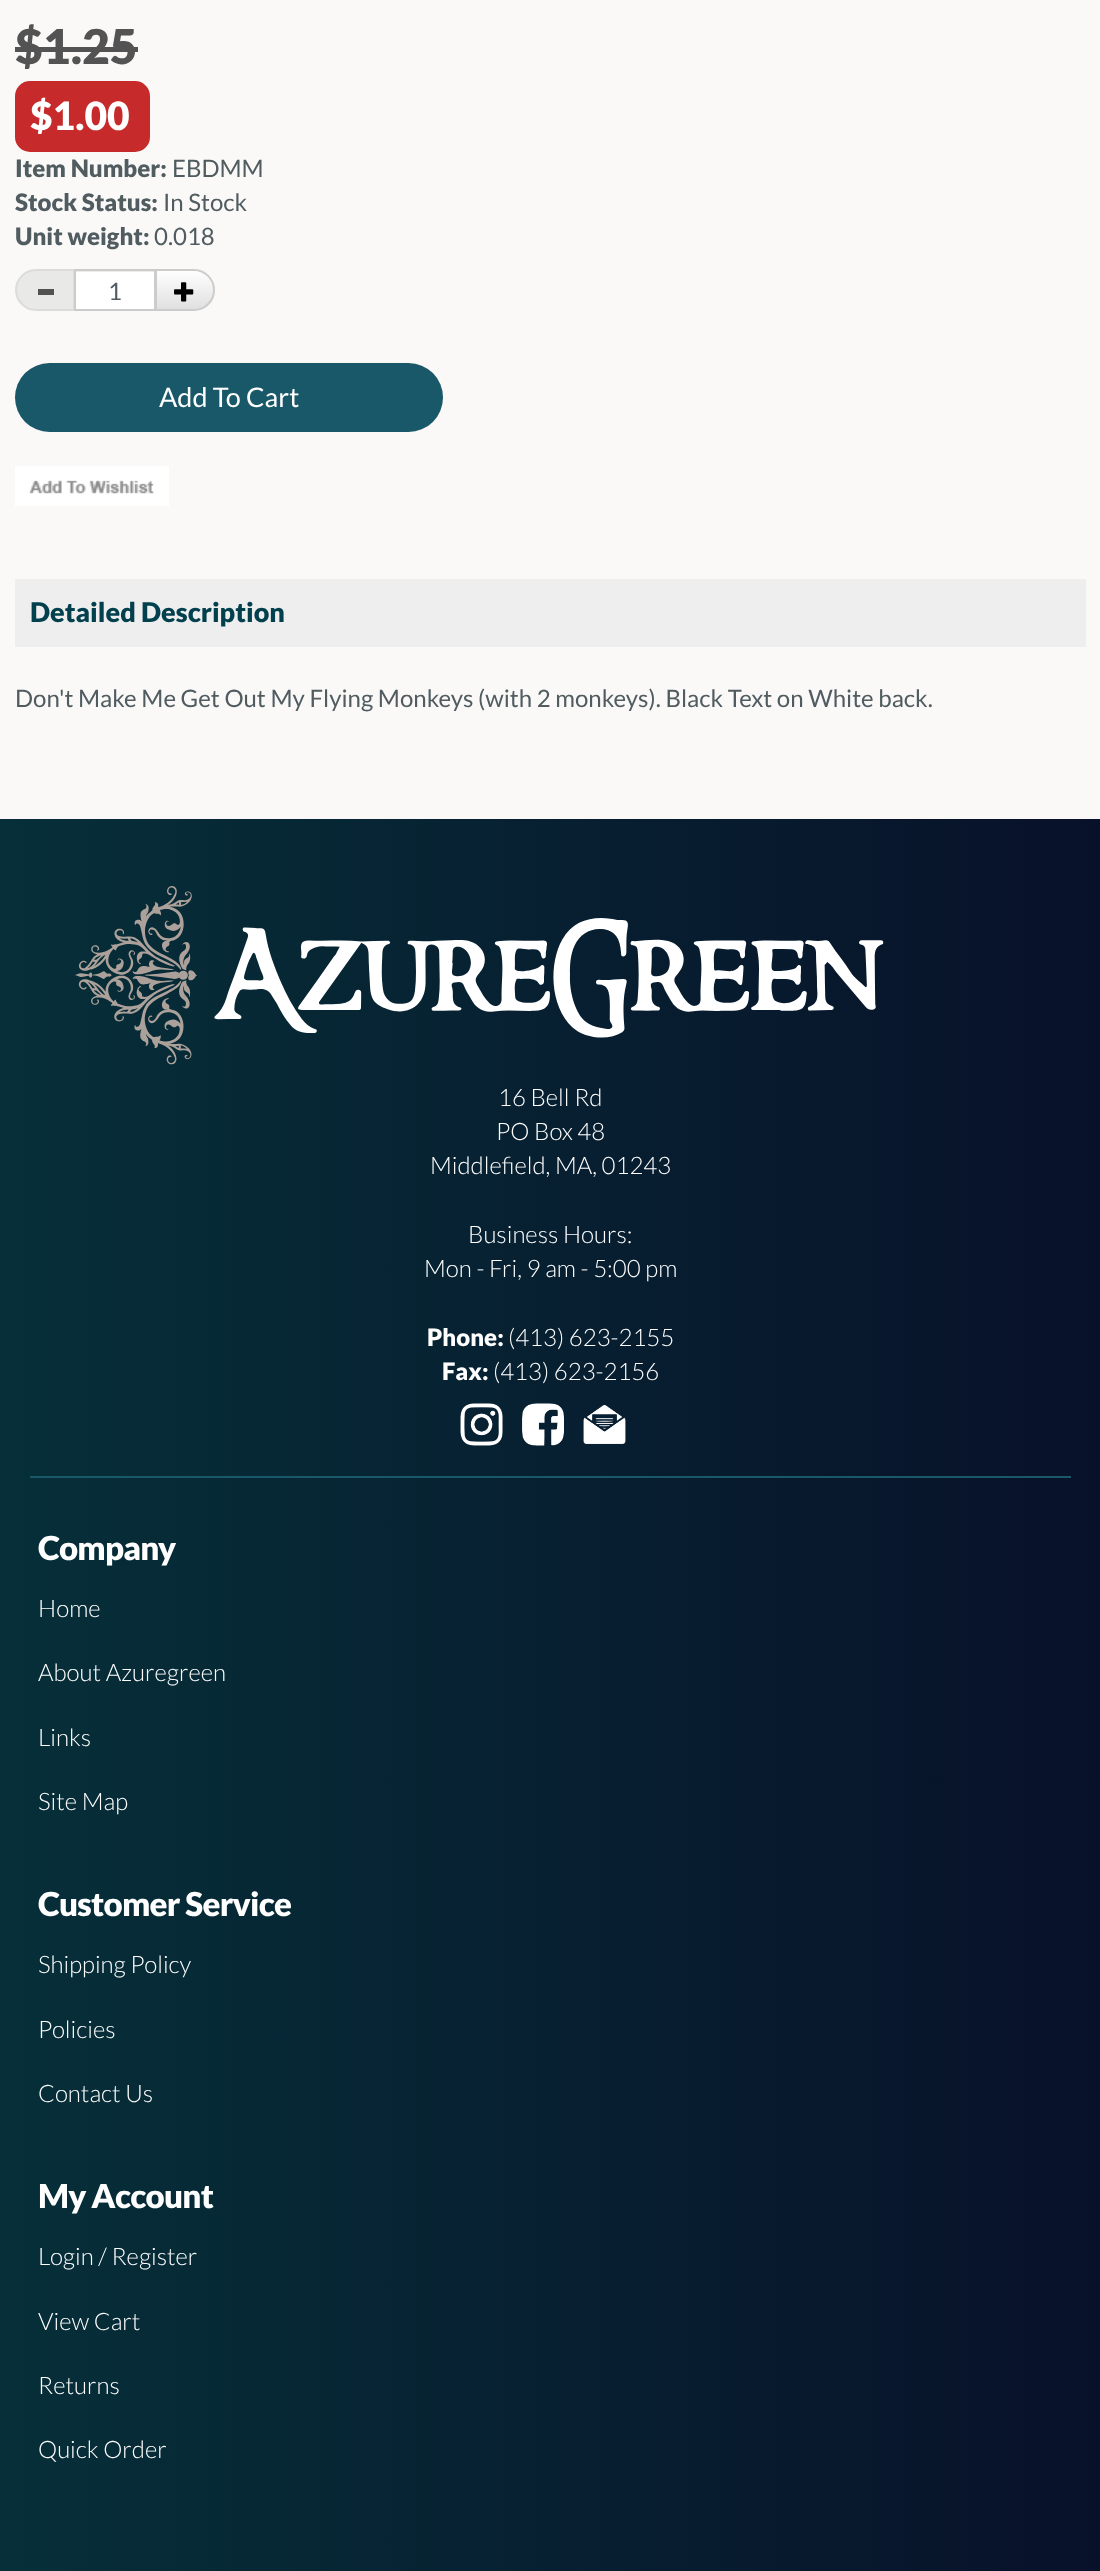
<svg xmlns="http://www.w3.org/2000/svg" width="1100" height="2571">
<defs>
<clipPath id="clip1"><path d="M155 269h39c11.5 0 21 9.5 21 21c0 11.5-9.5 21-21 21h-39z"/></clipPath>
<linearGradient id="g1" gradientUnits="userSpaceOnUse" x1="185" y1="270" x2="185" y2="309"><stop offset="0" stop-color="#fff"/><stop offset="1" stop-color="#e0e0e0"/></linearGradient>
<linearGradient id="g2" gradientUnits="userSpaceOnUse" x1="0" y1="1695" x2="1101" y2="1695"><stop offset="0" stop-color="#062f39"/><stop offset="1" stop-color="#081129"/></linearGradient>
</defs>
<rect width="100%" height="100%" fill="#faf9f8"/>
<text x="15" y="64" style="font-family:Lato;font-size:48px;font-weight:900;fill:#535353">$1.25</text>
<rect x="15" y="47" width="123" height="5" fill="#535353"/>
<rect x="15" y="81" width="135" height="71" rx="15" fill="#c62a2a"/>
<text x="30" y="130" style="font-family:Lato;font-size:39px;font-weight:900;fill:#fff">$1.00</text>
<text x="15" y="177" style="font-family:Lato;font-size:24px;font-weight:900;fill:#505c60">Item Number:</text>
<text x="172" y="177" style="font-family:Lato;font-size:24px;fill:#505c60">EBDMM</text>
<text x="15" y="211" style="font-family:Lato;font-size:24px;font-weight:900;fill:#505c60">Stock Status:</text>
<text x="163" y="211" style="font-family:Lato;font-size:24px;fill:#505c60">In Stock</text>
<text x="15" y="245" style="font-family:Lato;font-size:24px;font-weight:900;fill:#505c60">Unit weight:</text>
<text x="154" y="245" style="font-family:Lato;font-size:24px;fill:#505c60">0.018</text>
<path d="M36 270h38v40h-38c-11 0-20-9-20-20c0-11 9-20 20-20z" fill="#e9e9e8" stroke="#dcdcdb" stroke-width="2"/>
<rect x="38" y="289" width="16" height="6" fill="#525251"/>
<rect x="76" y="272" width="78" height="37" fill="#fff"/>
<rect x="75" y="271" width="80" height="1" fill="#ececec"/>
<rect x="75" y="270" width="80" height="40" fill="none" stroke="#ccc" stroke-width="2"/>
<text x="108" y="300" style="font-family:Lato;font-size:24px;fill:#505c60">1</text>
<g clip-path="url(#clip1)">
<rect x="157" y="270" width="58" height="39" fill="url(#g1)"/>
</g>
<path d="M156 270h38c11 0 20 9 20 20c0 11-9 20-20 20h-38z" fill="none" stroke="#ccc" stroke-width="2"/>
<image x="174" y="282" width="20" height="20" href="media/1.png"/>
<rect x="15" y="363" width="428" height="69" rx="34.5" fill="#195869"/>
<text x="159" y="407" style="font-family:Lato;font-size:27px;fill:#fff">Add To Cart</text>
<image x="15" y="466" width="154" height="40" href="media/2.png"/>
<rect x="15" y="579" width="1071" height="68" fill="#eee"/>
<text x="30" y="622" style="font-family:Lato;font-size:27px;font-weight:900;fill:#03404e">Detailed Description</text>
<text x="15" y="707" style="font-family:Lato;font-size:24px;fill:#505c60">Don't Make Me Get Out My Flying Monkeys (with 2 monkeys). Black Text on White back.</text>
<rect y="819" width="1100" height="1752" fill="url(#g2)"/>
<rect x="30" y="1476" width="1041" height="2" fill="#195869"/>
<image x="75" y="886" width="809" height="179" href="media/3.png"/>
<text x="498" y="1106" style="font-family:Lato;font-size:24px;font-weight:300;fill:#fff">16 Bell Rd</text>
<text x="496" y="1140" style="font-family:Lato;font-size:24px;font-weight:300;fill:#fff">PO Box 48</text>
<text x="430" y="1174" style="font-family:Lato;font-size:24px;font-weight:300;fill:#fff">Middlefield, MA, 01243</text>
<text x="468" y="1243" style="font-family:Lato;font-size:24px;font-weight:300;fill:#fff">Business Hours:</text>
<text x="424" y="1277" style="font-family:Lato;font-size:24px;font-weight:300;fill:#fff">Mon - Fri, 9 am - 5:00 pm</text>
<text x="427" y="1346" style="font-family:Lato;font-size:24px;font-weight:900;fill:#fff">Phone:</text>
<text x="508" y="1346" style="font-family:Lato;font-size:24px;font-weight:300;fill:#fff">(413) 623-2155</text>
<text x="442" y="1380" style="font-family:Lato;font-size:24px;font-weight:900;fill:#fff">Fax:</text>
<text x="493" y="1380" style="font-family:Lato;font-size:24px;font-weight:300;fill:#fff">(413) 623-2156</text>
<image x="460" y="1403" width="43" height="43" href="media/4.png"/>
<image x="522" y="1403" width="42" height="43" href="media/5.png"/>
<image x="583" y="1405" width="43" height="39" href="media/6.png"/>
<text x="38" y="1560" style="font-family:Lato;font-size:33px;font-weight:900;letter-spacing:-0.75px;fill:#fff">Company</text>
<text x="38" y="1617" style="font-family:Lato;font-size:24px;font-weight:300;fill:#fff">Home</text>
<text x="38" y="1681" style="font-family:Lato;font-size:24px;font-weight:300;fill:#fff">About Azuregreen</text>
<text x="38" y="1746" style="font-family:Lato;font-size:24px;font-weight:300;fill:#fff">Links</text>
<text x="38" y="1810" style="font-family:Lato;font-size:24px;font-weight:300;fill:#fff">Site Map</text>
<text x="38" y="1916" style="font-family:Lato;font-size:33px;font-weight:900;letter-spacing:-0.75px;fill:#fff">Customer Service</text>
<text x="38" y="1973" style="font-family:Lato;font-size:24px;font-weight:300;fill:#fff">Shipping Policy</text>
<text x="38" y="2038" style="font-family:Lato;font-size:24px;font-weight:300;fill:#fff">Policies</text>
<text x="38" y="2102" style="font-family:Lato;font-size:24px;font-weight:300;fill:#fff">Contact Us</text>
<text x="38" y="2208" style="font-family:Lato;font-size:33px;font-weight:900;letter-spacing:-0.75px;fill:#fff">My Account</text>
<text x="38" y="2265" style="font-family:Lato;font-size:24px;font-weight:300;fill:#fff">Login / Register</text>
<text x="38" y="2330" style="font-family:Lato;font-size:24px;font-weight:300;fill:#fff">View Cart</text>
<text x="38" y="2394" style="font-family:Lato;font-size:24px;font-weight:300;fill:#fff">Returns</text>
<text x="38" y="2458" style="font-family:Lato;font-size:24px;font-weight:300;fill:#fff">Quick Order</text>
</svg>
